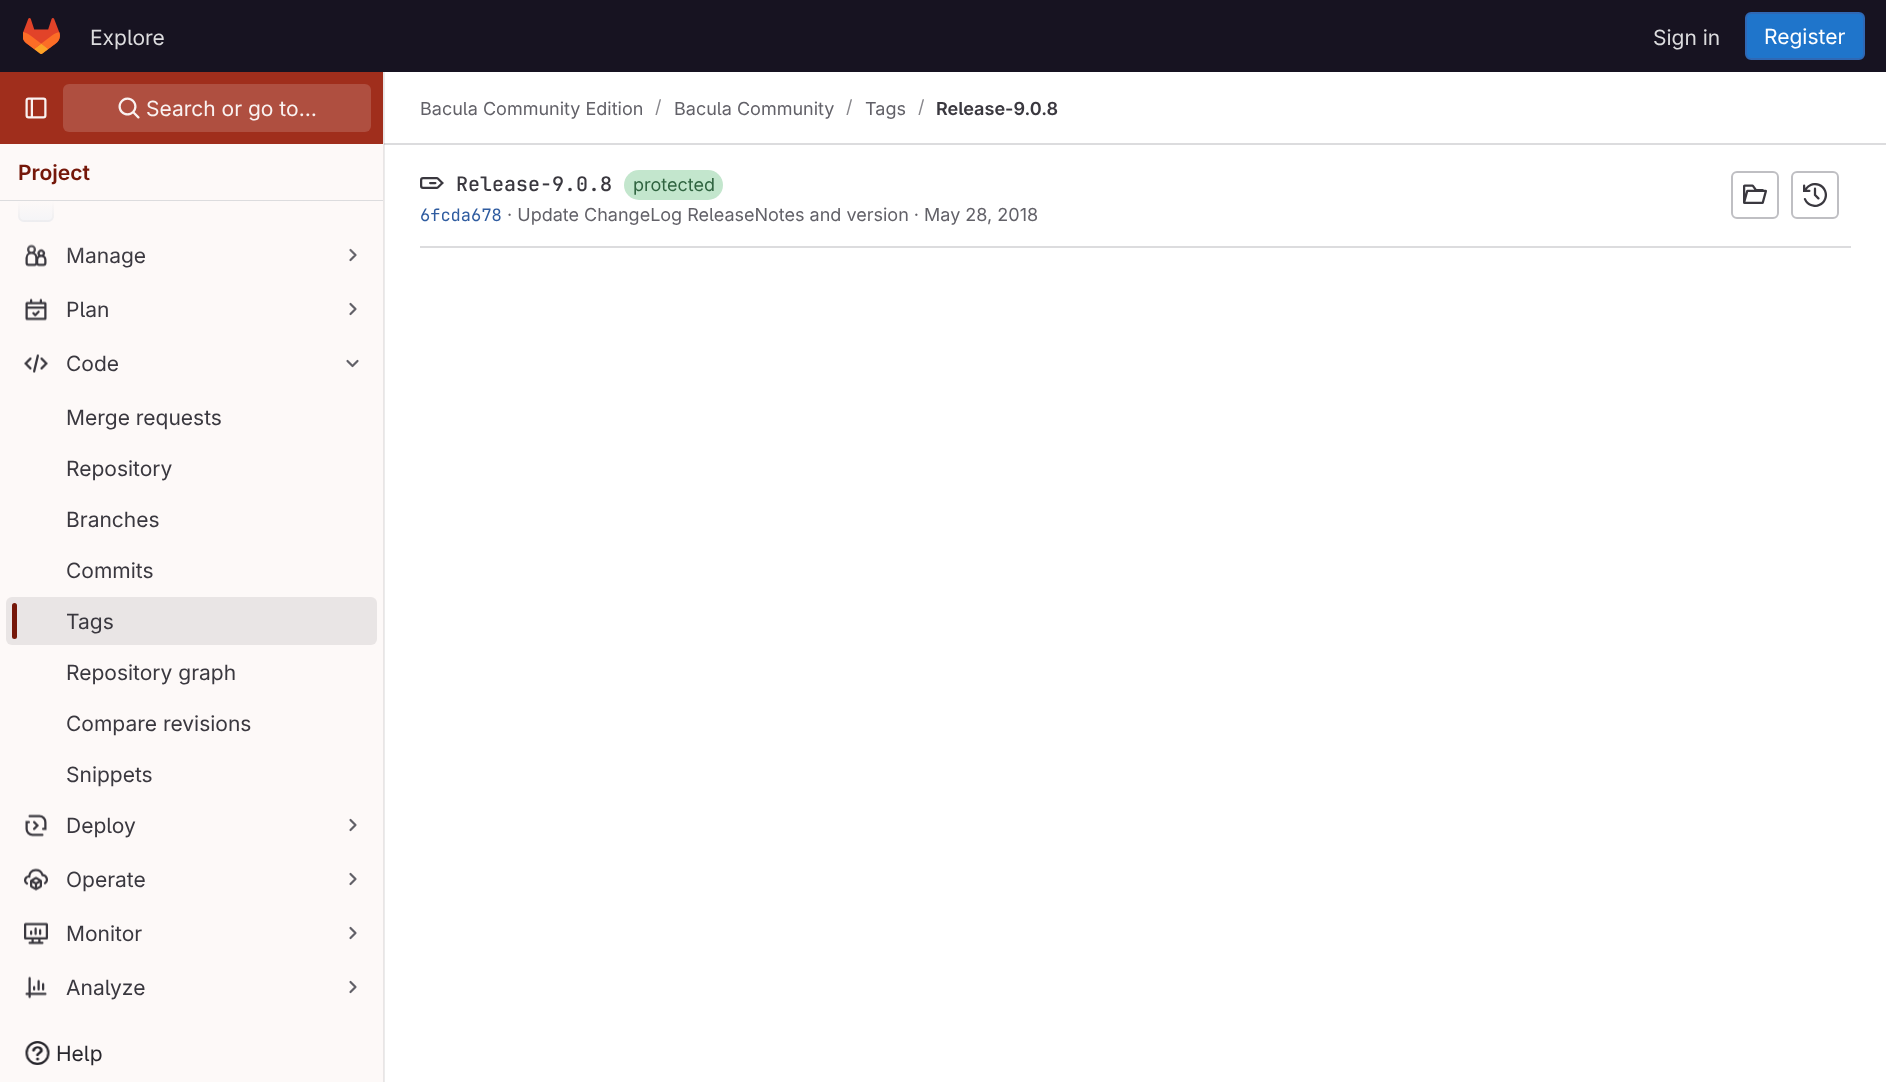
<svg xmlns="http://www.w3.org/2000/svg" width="1886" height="1082">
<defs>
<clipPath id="clip1"><rect y="201" width="383" height="822"/></clipPath>
<linearGradient id="g1" gradientUnits="userSpaceOnUse" x1="191" y1="201" x2="191" y2="255"><stop offset="0" stop-color="#fdf9f8"/><stop offset="1" stop-color="#fdf9f8" stop-opacity="0"/></linearGradient>
</defs>
<rect width="100%" height="100%" fill="#fff"/>
<rect x="384" y="72" width="1" height="1010" fill="#ebebeb"/>
<rect width="1886" height="72" fill="#171321"/>
<image x="23" y="18" width="37" height="36" href="media/1.png"/>
<text x="90" y="45" style="font-family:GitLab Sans;font-size:21px;fill:#dcdcde">Explore</text>
<text x="1653" y="45" style="font-family:GitLab Sans;font-size:21px;fill:#dcdcde">Sign in</text>
<rect x="1746" y="13" width="118" height="46" rx="5" fill="#1f75cb" stroke="#2f68b4" stroke-width="2"/>
<text x="1764" y="44" style="font-family:GitLab Sans;font-size:21px;fill:#fff">Register</text>
<rect y="144" width="383" height="938" fill="#fdf9f8"/>
<rect x="383" y="72" width="1" height="1010" fill="#e9e5e5"/>
<rect y="72" width="383" height="72" fill="#a02e1c"/>
<image x="25" y="97" width="22" height="22" href="media/2.png"/>
<rect x="63" y="84" width="308" height="48" rx="6" fill="#af4f40"/>
<image x="118" y="97" width="22" height="22" href="media/3.png"/>
<text x="146" y="116" style="font-family:GitLab Sans;font-size:21px;fill:#faf2f1">Search or go to…</text>
<text x="18" y="180" style="font-family:GitLab Sans;font-size:21px;font-weight:600;fill:#751709">Project</text>
<rect y="200" width="383" height="2" fill="#dcdcde"/>
<path d="M18 201h36v15c0 3.5-2.5 6-6 6h-24c-3.5 0-6-2.5-6-6z" fill="#9dc7f13d"/>
<g clip-path="url(#clip1)">
<rect x="19" y="187" width="34" height="34" rx="5" fill="none" stroke="#05050614" stroke-width="2"/>
</g>
<image x="25" y="244" width="22" height="23" href="media/4.png"/>
<text x="66" y="263" style="font-family:GitLab Sans;font-size:21px;fill:#3a383f">Manage</text>
<path d="M350.5 250l5 5l-5 5" fill="none" stroke="#626168" stroke-width="2.2" stroke-linecap="round" stroke-linejoin="round"/>
<rect y="201" width="383" height="53" fill="url(#g1)"/>
<image x="25" y="298" width="22" height="23" href="media/5.png"/>
<text x="66" y="317" style="font-family:GitLab Sans;font-size:21px;fill:#3a383f">Plan</text>
<path d="M350.5 304l5 5l-5 5" fill="none" stroke="#626168" stroke-width="2.2" stroke-linecap="round" stroke-linejoin="round"/>
<image x="24" y="354" width="24" height="19" href="media/6.png"/>
<text x="66" y="371" style="font-family:GitLab Sans;font-size:21px;fill:#3a383f">Code</text>
<path d="M357.5 361l-5 5l-5-5" fill="none" stroke="#626168" stroke-width="2.2" stroke-linecap="round" stroke-linejoin="round"/>
<text x="66" y="425" style="font-family:GitLab Sans;font-size:21px;fill:#3a383f">Merge requests</text>
<text x="66" y="476" style="font-family:GitLab Sans;font-size:21px;fill:#3a383f">Repository</text>
<text x="66" y="527" style="font-family:GitLab Sans;font-size:21px;fill:#3a383f">Branches</text>
<text x="66" y="578" style="font-family:GitLab Sans;font-size:21px;fill:#3a383f">Commits</text>
<rect x="6" y="597" width="371" height="48" rx="6" fill="#e9e5e5"/>
<rect x="12" y="603" width="5" height="36" rx="2.5" fill="#751709"/>
<text x="66" y="629" style="font-family:GitLab Sans;font-size:21px;fill:#3a383f">Tags</text>
<text x="66" y="680" style="font-family:GitLab Sans;font-size:21px;fill:#3a383f">Repository graph</text>
<text x="66" y="731" style="font-family:GitLab Sans;font-size:21px;fill:#3a383f">Compare revisions</text>
<text x="66" y="782" style="font-family:GitLab Sans;font-size:21px;fill:#3a383f">Snippets</text>
<image x="25" y="814" width="22" height="23" href="media/7.png"/>
<text x="66" y="833" style="font-family:GitLab Sans;font-size:21px;fill:#3a383f">Deploy</text>
<path d="M350.5 820l5 5l-5 5" fill="none" stroke="#626168" stroke-width="2.2" stroke-linecap="round" stroke-linejoin="round"/>
<image x="24" y="868" width="24" height="23" href="media/8.png"/>
<text x="66" y="887" style="font-family:GitLab Sans;font-size:21px;fill:#3a383f">Operate</text>
<path d="M350.5 874l5 5l-5 5" fill="none" stroke="#626168" stroke-width="2.2" stroke-linecap="round" stroke-linejoin="round"/>
<image x="24" y="922" width="24" height="23" href="media/9.png"/>
<text x="66" y="941" style="font-family:GitLab Sans;font-size:21px;fill:#3a383f">Monitor</text>
<path d="M350.5 928l5 5l-5 5" fill="none" stroke="#626168" stroke-width="2.2" stroke-linecap="round" stroke-linejoin="round"/>
<image x="25" y="976" width="22" height="23" href="media/10.png"/>
<text x="66" y="995" style="font-family:GitLab Sans;font-size:21px;fill:#3a383f">Analyze</text>
<path d="M350.5 982l5 5l-5 5" fill="none" stroke="#626168" stroke-width="2.2" stroke-linecap="round" stroke-linejoin="round"/>
<image x="25" y="1041" width="25" height="24" href="media/11.png"/>
<text x="56" y="1061" style="font-family:GitLab Sans;font-size:21px;fill:#28272d">Help</text>
<rect x="384" y="143" width="1502" height="2" fill="#dcdcde"/>
<rect x="384" y="143" width="1" height="2" fill="#cbcbcd"/>
<text x="420" y="115" style="font-family:GitLab Sans;font-size:18px;fill:#626168">Bacula Community Edition</text>
<text x="655" y="113" style="font-family:GitLab Sans;font-size:18px;fill:#89888d">/</text>
<text x="674" y="115" style="font-family:GitLab Sans;font-size:18px;fill:#626168">Bacula Community</text>
<text x="846" y="113" style="font-family:GitLab Sans;font-size:18px;fill:#89888d">/</text>
<text x="865" y="115" style="font-family:GitLab Sans;font-size:18px;fill:#626168">Tags</text>
<text x="918" y="113" style="font-family:GitLab Sans;font-size:18px;fill:#89888d">/</text>
<text x="936" y="115" style="font-family:GitLab Sans;font-size:18px;font-weight:600;fill:#3a383f">Release-9.0.8</text>
<rect x="420" y="246" width="1431" height="2" fill="#dcdcde"/>
<image x="420" y="177" width="24" height="12" href="media/12.png"/>
<text x="456" y="191" style="font-family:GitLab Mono;font-size:20px;font-weight:600;fill:#3a383f">Release-9.0.8</text>
<rect x="624" y="170" width="99" height="30" rx="15" fill="#c3e6cd"/>
<text x="633" y="191" style="font-family:GitLab Sans;font-size:18px;fill:#306440">protected</text>
<text x="420" y="221" style="font-family:GitLab Mono;font-size:17px;fill:#2f5ca0">6fcda678</text>
<text x="507" y="221" style="font-family:GitLab Sans;font-size:18px;fill:#626168">· Update ChangeLog ReleaseNotes and version · May 28, 2018</text>
<rect x="1732" y="172" width="46" height="46" rx="5" fill="none" stroke="#bfbfc3" stroke-width="2"/>
<image x="1743" y="184" width="24" height="20" href="media/13.png"/>
<rect x="1792" y="172" width="46" height="46" rx="5" fill="none" stroke="#bfbfc3" stroke-width="2"/>
<image x="1803" y="183" width="24" height="24" href="media/14.png"/>
</svg>
